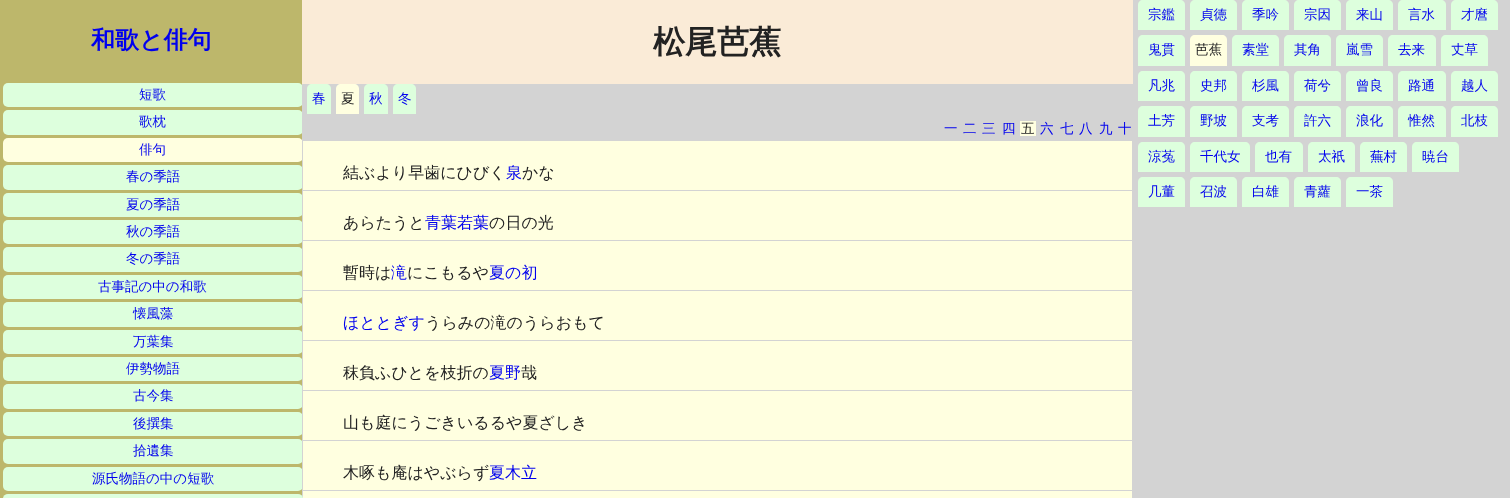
<svg xmlns="http://www.w3.org/2000/svg" width="1510" height="498">
<defs>
<clipPath id="clip1"><rect y="80" width="302" height="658"/></clipPath>
</defs>
<rect width="100%" height="100%" fill="#d3d3d3"/>
<rect width="302" height="498" fill="#bdb76b"/>
<text x="91" y="48" style="font-family:WenQuanYi Zen Hei;font-size:24px;font-weight:bold;fill:#00e">和歌と俳句</text>
<g clip-path="url(#clip1)">
<rect x="3" y="83" width="300" height="24" rx="5" fill="#dfd"/>
</g>
<text x="139" y="99" style="font-family:WenQuanYi Zen Hei;font-size:13.5px;font-weight:500;fill:#00e">短歌</text>
<g clip-path="url(#clip1)">
<rect x="3" y="110" width="300" height="25" rx="5" fill="#dfd"/>
</g>
<text x="139" y="126" style="font-family:WenQuanYi Zen Hei;font-size:13.5px;font-weight:500;fill:#00e">歌枕</text>
<g clip-path="url(#clip1)">
<rect x="3" y="138" width="300" height="24" rx="5" fill="#ffffe0"/>
</g>
<text x="139" y="154" style="font-family:WenQuanYi Zen Hei;font-size:13.5px;font-weight:500;fill:#00e">俳句</text>
<g clip-path="url(#clip1)">
<rect x="3" y="165" width="300" height="25" rx="5" fill="#dfd"/>
</g>
<text x="126" y="181" style="font-family:WenQuanYi Zen Hei;font-size:13.5px;font-weight:500;fill:#00e">春の季語</text>
<g clip-path="url(#clip1)">
<rect x="3" y="193" width="300" height="24" rx="5" fill="#dfd"/>
</g>
<text x="126" y="209" style="font-family:WenQuanYi Zen Hei;font-size:13.5px;font-weight:500;fill:#00e">夏の季語</text>
<g clip-path="url(#clip1)">
<rect x="3" y="220" width="300" height="24" rx="5" fill="#dfd"/>
</g>
<text x="126" y="236" style="font-family:WenQuanYi Zen Hei;font-size:13.5px;font-weight:500;fill:#00e">秋の季語</text>
<g clip-path="url(#clip1)">
<rect x="3" y="247" width="300" height="25" rx="5" fill="#dfd"/>
</g>
<text x="126" y="263" style="font-family:WenQuanYi Zen Hei;font-size:13.5px;font-weight:500;fill:#00e">冬の季語</text>
<g clip-path="url(#clip1)">
<rect x="3" y="275" width="300" height="24" rx="5" fill="#dfd"/>
</g>
<text x="98" y="291" style="font-family:WenQuanYi Zen Hei;font-size:13.5px;font-weight:500;fill:#00e">古事記の中の和歌</text>
<g clip-path="url(#clip1)">
<rect x="3" y="302" width="300" height="25" rx="5" fill="#dfd"/>
</g>
<text x="133" y="318" style="font-family:WenQuanYi Zen Hei;font-size:13.5px;font-weight:500;fill:#00e">懐風藻</text>
<g clip-path="url(#clip1)">
<rect x="3" y="330" width="300" height="24" rx="5" fill="#dfd"/>
</g>
<text x="133" y="346" style="font-family:WenQuanYi Zen Hei;font-size:13.5px;font-weight:500;fill:#00e">万葉集</text>
<g clip-path="url(#clip1)">
<rect x="3" y="357" width="300" height="24" rx="5" fill="#dfd"/>
</g>
<text x="126" y="373" style="font-family:WenQuanYi Zen Hei;font-size:13.5px;font-weight:500;fill:#00e">伊勢物語</text>
<g clip-path="url(#clip1)">
<rect x="3" y="384" width="300" height="25" rx="5" fill="#dfd"/>
</g>
<text x="133" y="400" style="font-family:WenQuanYi Zen Hei;font-size:13.5px;font-weight:500;fill:#00e">古今集</text>
<g clip-path="url(#clip1)">
<rect x="3" y="412" width="300" height="24" rx="5" fill="#dfd"/>
</g>
<text x="133" y="428" style="font-family:WenQuanYi Zen Hei;font-size:13.5px;font-weight:500;fill:#00e">後撰集</text>
<g clip-path="url(#clip1)">
<rect x="3" y="439" width="300" height="25" rx="5" fill="#dfd"/>
</g>
<text x="133" y="455" style="font-family:WenQuanYi Zen Hei;font-size:13.5px;font-weight:500;fill:#00e">拾遺集</text>
<g clip-path="url(#clip1)">
<rect x="3" y="467" width="300" height="24" rx="5" fill="#dfd"/>
</g>
<text x="92" y="483" style="font-family:WenQuanYi Zen Hei;font-size:13.5px;font-weight:500;fill:#00e">源氏物語の中の短歌</text>
<rect x="3" y="494" width="300" height="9" rx="5" fill="#dfd"/>
<rect x="302" width="831" height="84" fill="#faebd7"/>
<text x="653" y="53" style="font-family:WenQuanYi Zen Hei;font-size:32px;font-weight:bold;fill:#222">松尾芭蕉</text>
<path d="M312 84h14c3 0 5 2 5 5v25h-24v-25c0-3 2-5 5-5z" fill="#dfd"/>
<text x="312" y="103" style="font-family:WenQuanYi Zen Hei;font-size:13.5px;font-weight:500;fill:#00e">春</text>
<path d="M341 84h13c3 0 5 2 5 5v25h-23v-25c0-3 2-5 5-5z" fill="#ffffe0"/>
<text x="341" y="103" style="font-family:WenQuanYi Zen Hei;font-size:13.5px;font-weight:500;fill:#222">夏</text>
<path d="M369 84h14c3 0 5 2 5 5v25h-24v-25c0-3 2-5 5-5z" fill="#dfd"/>
<text x="369" y="103" style="font-family:WenQuanYi Zen Hei;font-size:13.5px;font-weight:500;fill:#00e">秋</text>
<path d="M398 84h13c3 0 5 2 5 5v25h-23v-25c0-3 2-5 5-5z" fill="#dfd"/>
<text x="398" y="103" style="font-family:WenQuanYi Zen Hei;font-size:13.5px;font-weight:500;fill:#00e">冬</text>
<text x="944" y="133" style="font-family:WenQuanYi Zen Hei;font-size:13.5px;font-weight:500;fill:#00e">一</text>
<text x="963" y="133" style="font-family:WenQuanYi Zen Hei;font-size:13.5px;font-weight:500;fill:#00e">二</text>
<text x="982" y="133" style="font-family:WenQuanYi Zen Hei;font-size:13.5px;font-weight:500;fill:#00e">三</text>
<text x="1002" y="133" style="font-family:WenQuanYi Zen Hei;font-size:13.5px;font-weight:500;fill:#00e">四</text>
<rect x="1020" y="121" width="16" height="15" fill="#ffffe0"/>
<text x="1021" y="133" style="font-family:WenQuanYi Zen Hei;font-size:13.5px;font-weight:500;fill:#222">五</text>
<text x="1040" y="133" style="font-family:WenQuanYi Zen Hei;font-size:13.5px;font-weight:500;fill:#00e">六</text>
<text x="1060" y="133" style="font-family:WenQuanYi Zen Hei;font-size:13.5px;font-weight:500;fill:#00e">七</text>
<text x="1079" y="133" style="font-family:WenQuanYi Zen Hei;font-size:13.5px;font-weight:500;fill:#00e">八</text>
<text x="1099" y="133" style="font-family:WenQuanYi Zen Hei;font-size:13.5px;font-weight:500;fill:#00e">九</text>
<text x="1118" y="133" style="font-family:WenQuanYi Zen Hei;font-size:13.5px;font-weight:500;fill:#00e">十</text>
<rect x="303" y="141" width="829" height="49" fill="#ffffe0"/>
<text x="343" y="178" style="font-family:WenQuanYi Zen Hei;font-size:16px;font-weight:500;fill:#222">結ぶより早歯にひびく</text>
<text x="506" y="178" style="font-family:WenQuanYi Zen Hei;font-size:16px;font-weight:500;fill:#00e">泉</text>
<text x="522" y="178" style="font-family:WenQuanYi Zen Hei;font-size:16px;font-weight:500;fill:#222">かな</text>
<rect x="303" y="191" width="829" height="49" fill="#ffffe0"/>
<text x="343" y="228" style="font-family:WenQuanYi Zen Hei;font-size:16px;font-weight:500;fill:#222">あらたうと</text>
<text x="425" y="228" style="font-family:WenQuanYi Zen Hei;font-size:16px;font-weight:500;fill:#00e">青葉若葉</text>
<text x="489" y="228" style="font-family:WenQuanYi Zen Hei;font-size:16px;font-weight:500;fill:#222">の日の光</text>
<rect x="303" y="241" width="829" height="49" fill="#ffffe0"/>
<text x="343" y="278" style="font-family:WenQuanYi Zen Hei;font-size:16px;font-weight:500;fill:#222">暫時は</text>
<text x="391" y="278" style="font-family:WenQuanYi Zen Hei;font-size:16px;font-weight:500;fill:#00e">滝</text>
<text x="407" y="278" style="font-family:WenQuanYi Zen Hei;font-size:16px;font-weight:500;fill:#222">にこもるや</text>
<text x="489" y="278" style="font-family:WenQuanYi Zen Hei;font-size:16px;font-weight:500;fill:#00e">夏の初</text>
<rect x="303" y="291" width="829" height="49" fill="#ffffe0"/>
<text x="343" y="328" style="font-family:WenQuanYi Zen Hei;font-size:16px;font-weight:500;fill:#00e">ほととぎす</text>
<text x="425" y="328" style="font-family:WenQuanYi Zen Hei;font-size:16px;font-weight:500;fill:#222">うらみの滝のうらおもて</text>
<rect x="303" y="341" width="829" height="49" fill="#ffffe0"/>
<text x="343" y="378" style="font-family:WenQuanYi Zen Hei;font-size:16px;font-weight:500;fill:#222">秣負ふひとを枝折の</text>
<text x="489" y="378" style="font-family:WenQuanYi Zen Hei;font-size:16px;font-weight:500;fill:#00e">夏野</text>
<text x="521" y="378" style="font-family:WenQuanYi Zen Hei;font-size:16px;font-weight:500;fill:#222">哉</text>
<rect x="303" y="391" width="829" height="49" fill="#ffffe0"/>
<text x="343" y="428" style="font-family:WenQuanYi Zen Hei;font-size:16px;font-weight:500;fill:#222">山も庭にうごきいるるや夏ざしき</text>
<rect x="303" y="441" width="829" height="49" fill="#ffffe0"/>
<text x="343" y="478" style="font-family:WenQuanYi Zen Hei;font-size:16px;font-weight:500;fill:#222">木啄も庵はやぶらず</text>
<text x="489" y="478" style="font-family:WenQuanYi Zen Hei;font-size:16px;font-weight:500;fill:#00e">夏木立</text>
<rect x="303" y="491" width="829" height="7" fill="#ffffe0"/>
<path d="M1143 0h37c3 0 5 2 5 5v25h-47v-25c0-3 2-5 5-5z" fill="#dfd"/>
<text x="1148" y="19" style="font-family:WenQuanYi Zen Hei;font-size:13.5px;font-weight:500;fill:#00e">宗鑑</text>
<path d="M1195 0h37c3 0 5 2 5 5v25h-47v-25c0-3 2-5 5-5z" fill="#dfd"/>
<text x="1200" y="19" style="font-family:WenQuanYi Zen Hei;font-size:13.5px;font-weight:500;fill:#00e">貞徳</text>
<path d="M1247 0h37c3 0 5 2 5 5v25h-47v-25c0-3 2-5 5-5z" fill="#dfd"/>
<text x="1252" y="19" style="font-family:WenQuanYi Zen Hei;font-size:13.5px;font-weight:500;fill:#00e">季吟</text>
<path d="M1299 0h37c3 0 5 2 5 5v25h-47v-25c0-3 2-5 5-5z" fill="#dfd"/>
<text x="1304" y="19" style="font-family:WenQuanYi Zen Hei;font-size:13.5px;font-weight:500;fill:#00e">宗因</text>
<path d="M1351 0h37c3 0 5 2 5 5v25h-47v-25c0-3 2-5 5-5z" fill="#dfd"/>
<text x="1356" y="19" style="font-family:WenQuanYi Zen Hei;font-size:13.5px;font-weight:500;fill:#00e">来山</text>
<path d="M1403 0h38c3 0 5 2 5 5v25h-48v-25c0-3 2-5 5-5z" fill="#dfd"/>
<text x="1408" y="19" style="font-family:WenQuanYi Zen Hei;font-size:13.5px;font-weight:500;fill:#00e">言水</text>
<path d="M1456 0h37c3 0 5 2 5 5v25h-47v-25c0-3 2-5 5-5z" fill="#dfd"/>
<text x="1461" y="19" style="font-family:WenQuanYi Zen Hei;font-size:13.5px;font-weight:500;fill:#00e">才麿</text>
<path d="M1143 35h37c3 0 5 2 5 5v26h-47v-26c0-3 2-5 5-5z" fill="#dfd"/>
<text x="1148" y="54" style="font-family:WenQuanYi Zen Hei;font-size:13.5px;font-weight:500;fill:#00e">鬼貫</text>
<path d="M1195 35h27c3 0 5 2 5 5v26h-37v-26c0-3 2-5 5-5z" fill="#ffffe0"/>
<text x="1195" y="54" style="font-family:WenQuanYi Zen Hei;font-size:13.5px;font-weight:500;fill:#222">芭蕉</text>
<path d="M1237 35h37c3 0 5 2 5 5v26h-47v-26c0-3 2-5 5-5z" fill="#dfd"/>
<text x="1242" y="54" style="font-family:WenQuanYi Zen Hei;font-size:13.5px;font-weight:500;fill:#00e">素堂</text>
<path d="M1289 35h37c3 0 5 2 5 5v26h-47v-26c0-3 2-5 5-5z" fill="#dfd"/>
<text x="1294" y="54" style="font-family:WenQuanYi Zen Hei;font-size:13.5px;font-weight:500;fill:#00e">其角</text>
<path d="M1341 35h37c3 0 5 2 5 5v26h-47v-26c0-3 2-5 5-5z" fill="#dfd"/>
<text x="1346" y="54" style="font-family:WenQuanYi Zen Hei;font-size:13.5px;font-weight:500;fill:#00e">嵐雪</text>
<path d="M1393 35h38c3 0 5 2 5 5v26h-48v-26c0-3 2-5 5-5z" fill="#dfd"/>
<text x="1398" y="54" style="font-family:WenQuanYi Zen Hei;font-size:13.5px;font-weight:500;fill:#00e">去来</text>
<path d="M1446 35h37c3 0 5 2 5 5v26h-47v-26c0-3 2-5 5-5z" fill="#dfd"/>
<text x="1451" y="54" style="font-family:WenQuanYi Zen Hei;font-size:13.5px;font-weight:500;fill:#00e">丈草</text>
<path d="M1143 71h37c3 0 5 2 5 5v25h-47v-25c0-3 2-5 5-5z" fill="#dfd"/>
<text x="1148" y="90" style="font-family:WenQuanYi Zen Hei;font-size:13.5px;font-weight:500;fill:#00e">凡兆</text>
<path d="M1195 71h37c3 0 5 2 5 5v25h-47v-25c0-3 2-5 5-5z" fill="#dfd"/>
<text x="1200" y="90" style="font-family:WenQuanYi Zen Hei;font-size:13.5px;font-weight:500;fill:#00e">史邦</text>
<path d="M1247 71h37c3 0 5 2 5 5v25h-47v-25c0-3 2-5 5-5z" fill="#dfd"/>
<text x="1252" y="90" style="font-family:WenQuanYi Zen Hei;font-size:13.5px;font-weight:500;fill:#00e">杉風</text>
<path d="M1299 71h37c3 0 5 2 5 5v25h-47v-25c0-3 2-5 5-5z" fill="#dfd"/>
<text x="1304" y="90" style="font-family:WenQuanYi Zen Hei;font-size:13.5px;font-weight:500;fill:#00e">荷兮</text>
<path d="M1351 71h37c3 0 5 2 5 5v25h-47v-25c0-3 2-5 5-5z" fill="#dfd"/>
<text x="1356" y="90" style="font-family:WenQuanYi Zen Hei;font-size:13.5px;font-weight:500;fill:#00e">曾良</text>
<path d="M1403 71h38c3 0 5 2 5 5v25h-48v-25c0-3 2-5 5-5z" fill="#dfd"/>
<text x="1408" y="90" style="font-family:WenQuanYi Zen Hei;font-size:13.5px;font-weight:500;fill:#00e">路通</text>
<path d="M1456 71h37c3 0 5 2 5 5v25h-47v-25c0-3 2-5 5-5z" fill="#dfd"/>
<text x="1461" y="90" style="font-family:WenQuanYi Zen Hei;font-size:13.5px;font-weight:500;fill:#00e">越人</text>
<path d="M1143 106h37c3 0 5 2 5 5v26h-47v-26c0-3 2-5 5-5z" fill="#dfd"/>
<text x="1148" y="125" style="font-family:WenQuanYi Zen Hei;font-size:13.5px;font-weight:500;fill:#00e">土芳</text>
<path d="M1195 106h37c3 0 5 2 5 5v26h-47v-26c0-3 2-5 5-5z" fill="#dfd"/>
<text x="1200" y="125" style="font-family:WenQuanYi Zen Hei;font-size:13.5px;font-weight:500;fill:#00e">野坡</text>
<path d="M1247 106h37c3 0 5 2 5 5v26h-47v-26c0-3 2-5 5-5z" fill="#dfd"/>
<text x="1252" y="125" style="font-family:WenQuanYi Zen Hei;font-size:13.5px;font-weight:500;fill:#00e">支考</text>
<path d="M1299 106h37c3 0 5 2 5 5v26h-47v-26c0-3 2-5 5-5z" fill="#dfd"/>
<text x="1304" y="125" style="font-family:WenQuanYi Zen Hei;font-size:13.5px;font-weight:500;fill:#00e">許六</text>
<path d="M1351 106h37c3 0 5 2 5 5v26h-47v-26c0-3 2-5 5-5z" fill="#dfd"/>
<text x="1356" y="125" style="font-family:WenQuanYi Zen Hei;font-size:13.5px;font-weight:500;fill:#00e">浪化</text>
<path d="M1403 106h38c3 0 5 2 5 5v26h-48v-26c0-3 2-5 5-5z" fill="#dfd"/>
<text x="1408" y="125" style="font-family:WenQuanYi Zen Hei;font-size:13.5px;font-weight:500;fill:#00e">惟然</text>
<path d="M1456 106h37c3 0 5 2 5 5v26h-47v-26c0-3 2-5 5-5z" fill="#dfd"/>
<text x="1461" y="125" style="font-family:WenQuanYi Zen Hei;font-size:13.5px;font-weight:500;fill:#00e">北枝</text>
<path d="M1143 142h37c3 0 5 2 5 5v25h-47v-25c0-3 2-5 5-5z" fill="#dfd"/>
<text x="1148" y="161" style="font-family:WenQuanYi Zen Hei;font-size:13.5px;font-weight:500;fill:#00e">涼菟</text>
<path d="M1195 142h50c3 0 5 2 5 5v25h-60v-25c0-3 2-5 5-5z" fill="#dfd"/>
<text x="1200" y="161" style="font-family:WenQuanYi Zen Hei;font-size:13.5px;font-weight:500;fill:#00e">千代女</text>
<path d="M1260 142h38c3 0 5 2 5 5v25h-48v-25c0-3 2-5 5-5z" fill="#dfd"/>
<text x="1265" y="161" style="font-family:WenQuanYi Zen Hei;font-size:13.5px;font-weight:500;fill:#00e">也有</text>
<path d="M1313 142h37c3 0 5 2 5 5v25h-47v-25c0-3 2-5 5-5z" fill="#dfd"/>
<text x="1318" y="161" style="font-family:WenQuanYi Zen Hei;font-size:13.5px;font-weight:500;fill:#00e">太祇</text>
<path d="M1365 142h37c3 0 5 2 5 5v25h-47v-25c0-3 2-5 5-5z" fill="#dfd"/>
<text x="1370" y="161" style="font-family:WenQuanYi Zen Hei;font-size:13.5px;font-weight:500;fill:#00e">蕪村</text>
<path d="M1417 142h37c3 0 5 2 5 5v25h-47v-25c0-3 2-5 5-5z" fill="#dfd"/>
<text x="1422" y="161" style="font-family:WenQuanYi Zen Hei;font-size:13.5px;font-weight:500;fill:#00e">暁台</text>
<path d="M1143 177h37c3 0 5 2 5 5v25h-47v-25c0-3 2-5 5-5z" fill="#dfd"/>
<text x="1148" y="196" style="font-family:WenQuanYi Zen Hei;font-size:13.5px;font-weight:500;fill:#00e">几董</text>
<path d="M1195 177h37c3 0 5 2 5 5v25h-47v-25c0-3 2-5 5-5z" fill="#dfd"/>
<text x="1200" y="196" style="font-family:WenQuanYi Zen Hei;font-size:13.5px;font-weight:500;fill:#00e">召波</text>
<path d="M1247 177h37c3 0 5 2 5 5v25h-47v-25c0-3 2-5 5-5z" fill="#dfd"/>
<text x="1252" y="196" style="font-family:WenQuanYi Zen Hei;font-size:13.5px;font-weight:500;fill:#00e">白雄</text>
<path d="M1299 177h37c3 0 5 2 5 5v25h-47v-25c0-3 2-5 5-5z" fill="#dfd"/>
<text x="1304" y="196" style="font-family:WenQuanYi Zen Hei;font-size:13.5px;font-weight:500;fill:#00e">青蘿</text>
<path d="M1351 177h37c3 0 5 2 5 5v25h-47v-25c0-3 2-5 5-5z" fill="#dfd"/>
<text x="1356" y="196" style="font-family:WenQuanYi Zen Hei;font-size:13.5px;font-weight:500;fill:#00e">一茶</text>
</svg>
